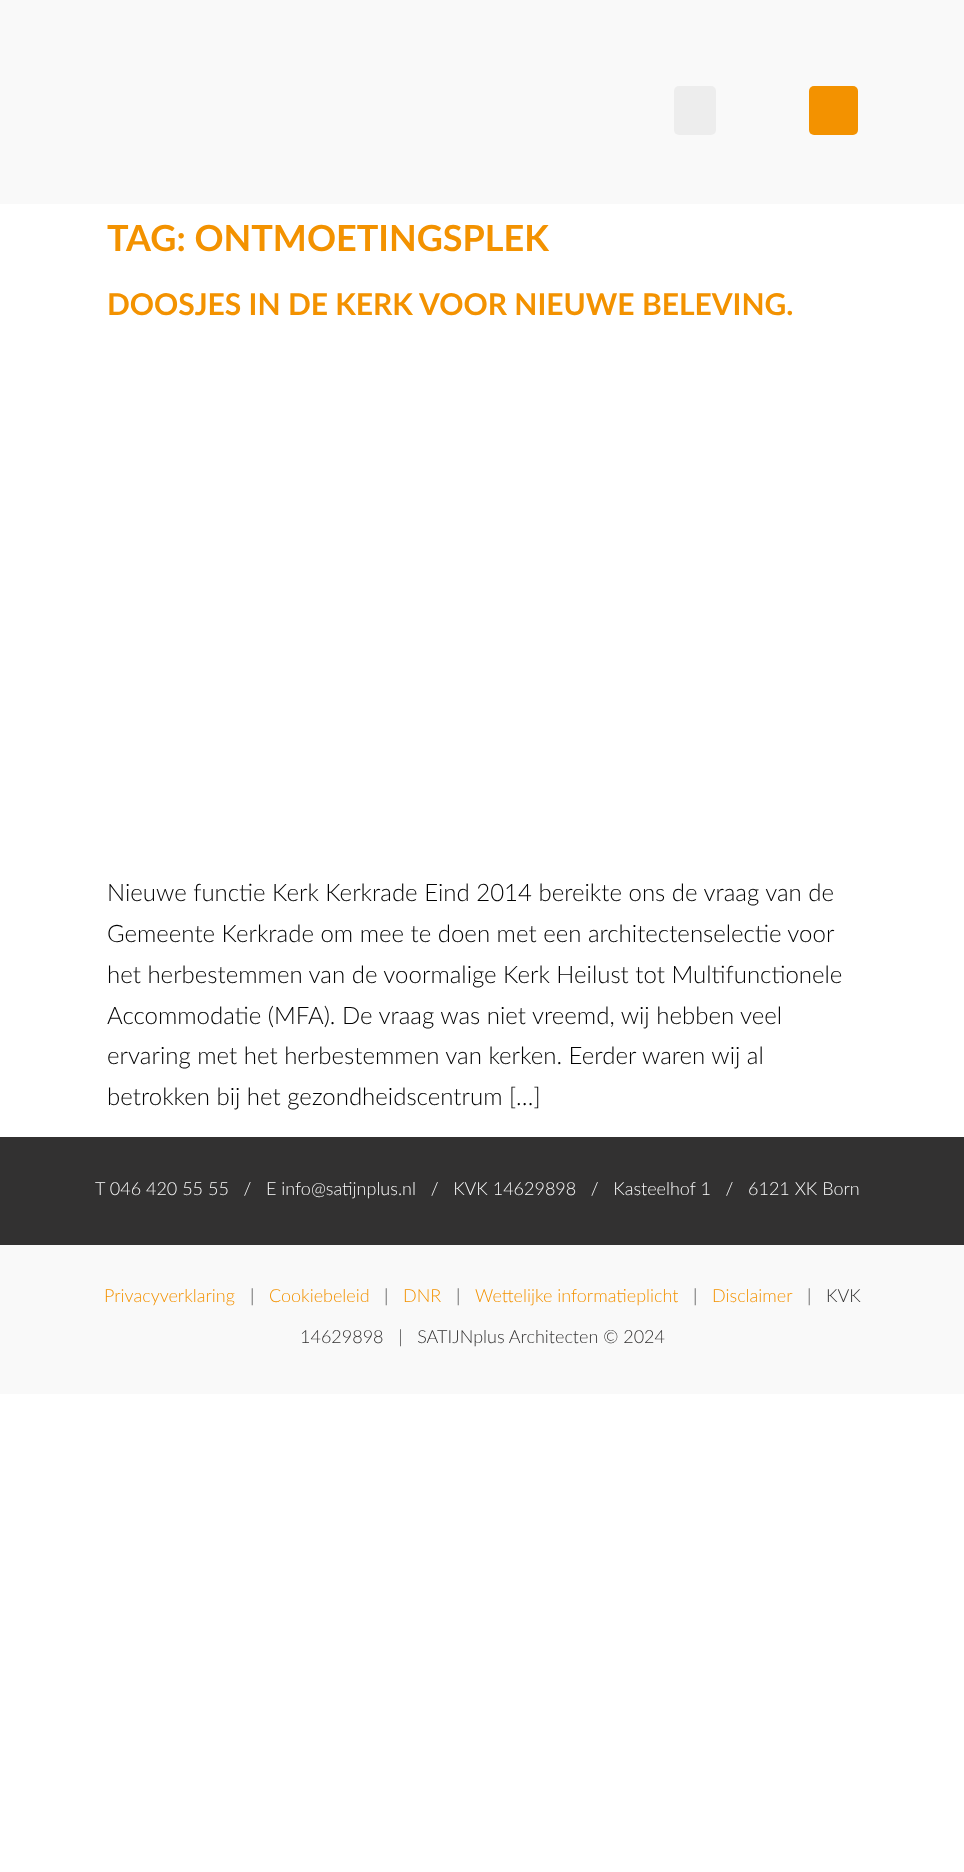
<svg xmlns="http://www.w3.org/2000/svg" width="964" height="1872">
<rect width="100%" height="100%" fill="#fff"/>
<rect width="964" height="204" fill="#f9f9f9"/>
<rect x="674" y="86" width="42" height="49" rx="5" fill="#ededed"/>
<rect x="809" y="86" width="49" height="49" rx="5" fill="#f39200"/>
<text x="107" y="251" style="font-family:Lato;font-size:36px;font-weight:bold;fill:#f39200">TAG: ONTMOETINGSPLEK</text>
<text x="107" y="315" style="font-family:Lato;font-size:30px;font-weight:bold;fill:#f39200">DOOSJES IN DE KERK VOOR NIEUWE BELEVING.</text>
<text x="107" y="901" style="font-family:Lato;font-size:24px;font-weight:300;fill:#020202">Nieuwe functie Kerk Kerkrade Eind 2014 bereikte ons de vraag van de</text>
<text x="107" y="942" style="font-family:Lato;font-size:24px;font-weight:300;fill:#020202">Gemeente Kerkrade om mee te doen met een architectenselectie voor</text>
<text x="107" y="983" style="font-family:Lato;font-size:24px;font-weight:300;fill:#020202">het herbestemmen van de voormalige Kerk Heilust tot Multifunctionele</text>
<text x="107" y="1024" style="font-family:Lato;font-size:24px;font-weight:300;fill:#020202">Accommodatie (MFA). De vraag was niet vreemd, wij hebben veel</text>
<text x="107" y="1064" style="font-family:Lato;font-size:24px;font-weight:300;fill:#020202">ervaring met het herbestemmen van kerken. Eerder waren wij al</text>
<text x="107" y="1105" style="font-family:Lato;font-size:24px;font-weight:300;fill:#020202">betrokken bij het gezondheidscentrum […]</text>
<rect y="1137" width="964" height="108" fill="#323131"/>
<text x="95" y="1195" style="font-family:Lato;font-size:18px;font-weight:300;fill:#f9f9f9" xml:space="preserve">T 046 420 55 55   /   E info@satijnplus.nl   /   KVK 14629898   /   Kasteelhof 1   /   6121 XK Born</text>
<rect y="1245" width="964" height="149" fill="#f9f9f9"/>
<text x="104" y="1302" style="font-family:Lato;font-size:18px;font-weight:300;fill:#f39200">Privacyverklaring</text>
<text x="250" y="1302" style="font-family:Lato;font-size:18px;font-weight:300;fill:#323131">|</text>
<text x="269" y="1302" style="font-family:Lato;font-size:18px;font-weight:300;fill:#f39200">Cookiebeleid</text>
<text x="384" y="1302" style="font-family:Lato;font-size:18px;font-weight:300;fill:#323131">|</text>
<text x="403" y="1302" style="font-family:Lato;font-size:18px;font-weight:300;fill:#f39200">DNR</text>
<text x="456" y="1302" style="font-family:Lato;font-size:18px;font-weight:300;fill:#323131">|</text>
<text x="475" y="1302" style="font-family:Lato;font-size:18px;font-weight:300;fill:#f39200">Wettelijke informatieplicht</text>
<text x="693" y="1302" style="font-family:Lato;font-size:18px;font-weight:300;fill:#323131">|</text>
<text x="712" y="1302" style="font-family:Lato;font-size:18px;font-weight:300;fill:#f39200">Disclaimer</text>
<text x="807" y="1302" style="font-family:Lato;font-size:18px;font-weight:300;fill:#323131" xml:space="preserve">|   KVK</text>
<text x="300" y="1343" style="font-family:Lato;font-size:18px;font-weight:300;fill:#323131" xml:space="preserve">14629898   |   SATIJNplus Architecten © 2024</text>
</svg>
